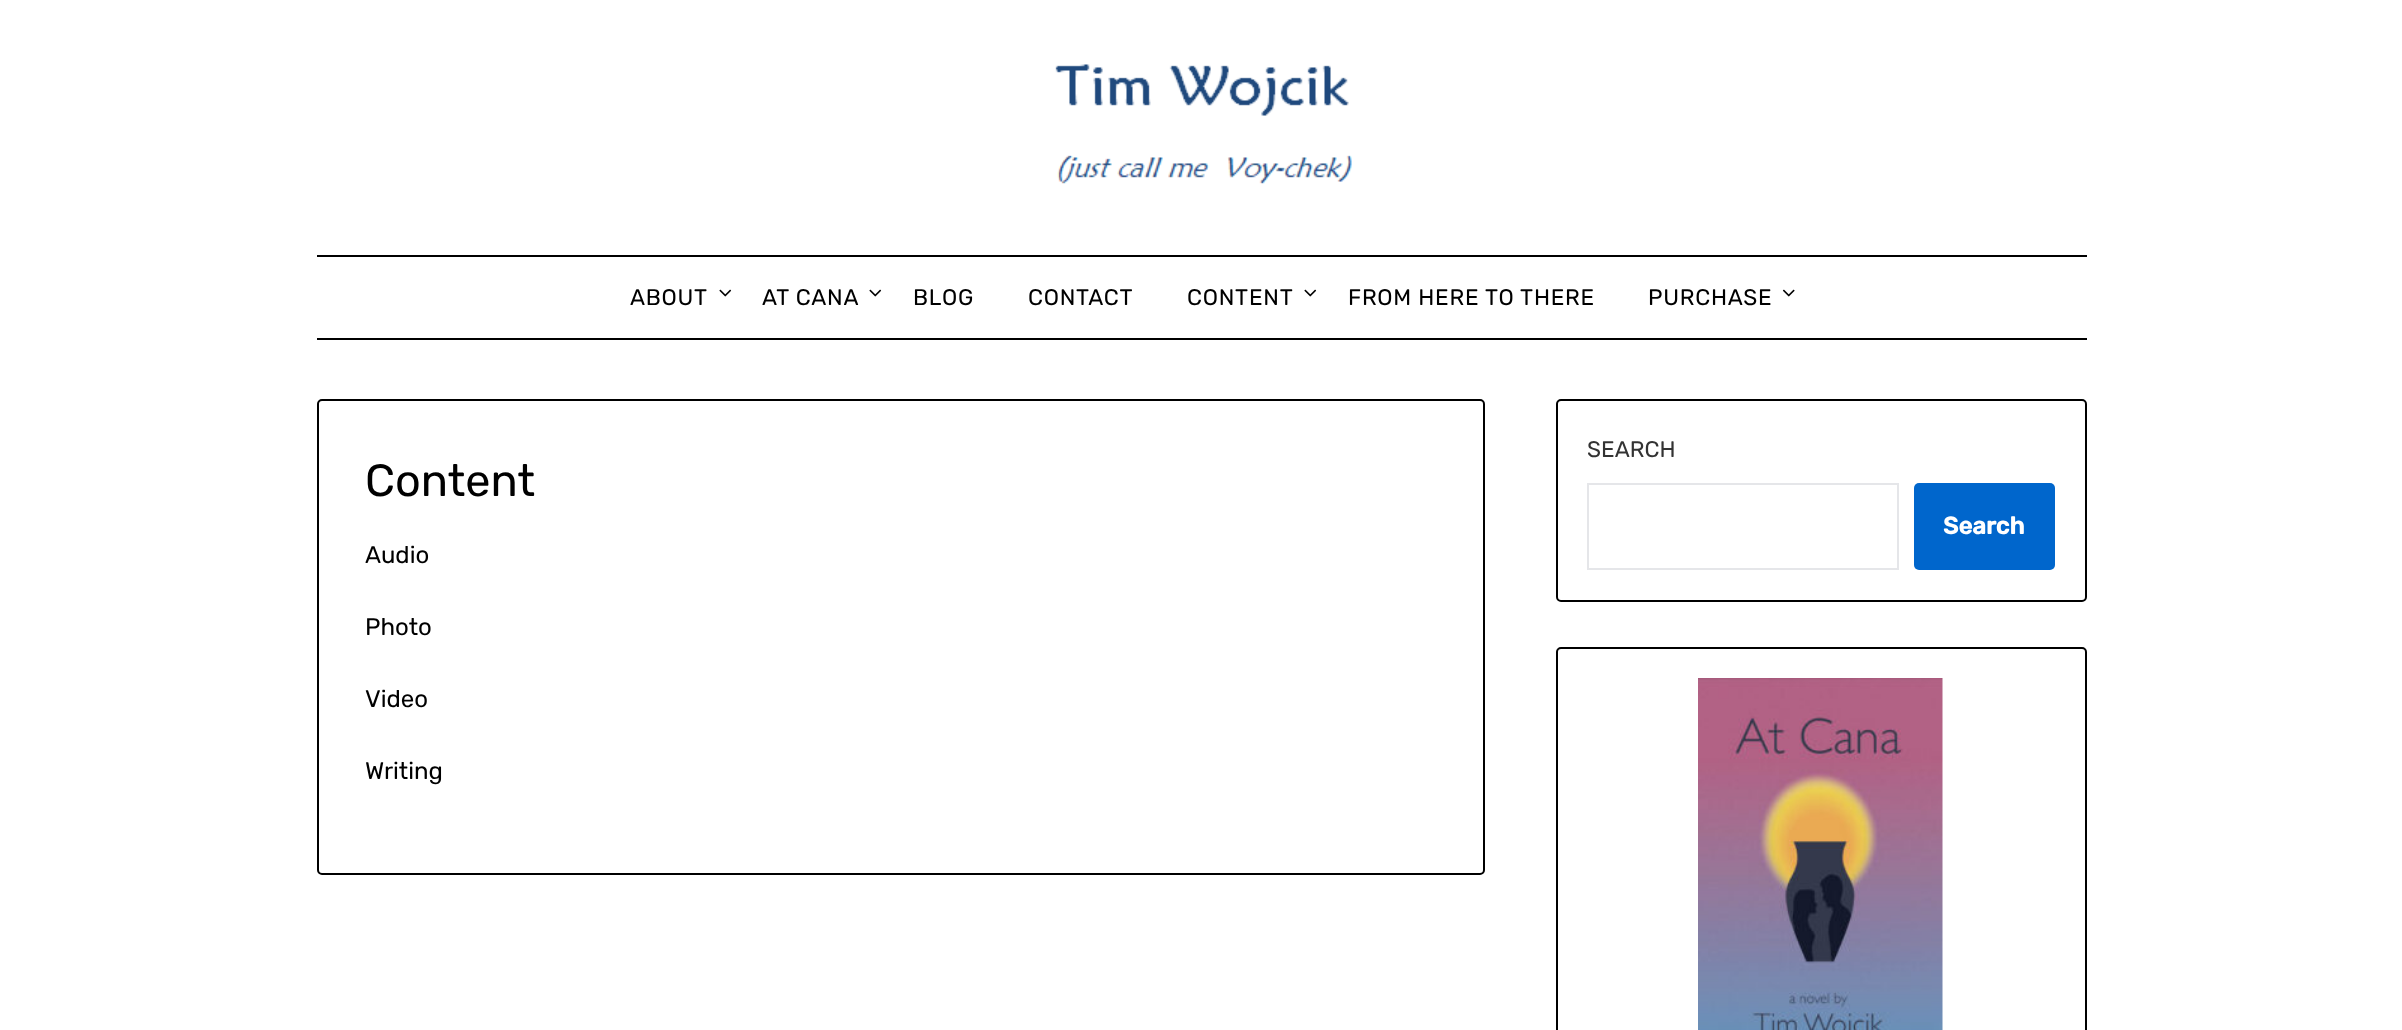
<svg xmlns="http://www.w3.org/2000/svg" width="2402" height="1030">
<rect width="100%" height="100%" fill="#fff"/>
<image x="1055" y="64" width="297" height="120" href="media/1.png"/>
<rect x="317" y="255" width="1770" height="2" fill="#000"/>
<rect x="317" y="338" width="1770" height="2" fill="#000"/>
<text x="630" y="305" style="font-family:Rubik;font-size:22.5px;letter-spacing:0.75px;fill:#000">ABOUT</text>
<image x="719" y="289" width="13" height="8" href="media/2.png"/>
<text x="762" y="305" style="font-family:Rubik;font-size:22.5px;letter-spacing:0.75px;fill:#000">AT CANA</text>
<image x="869" y="289" width="13" height="8" href="media/2.png"/>
<text x="913" y="305" style="font-family:Rubik;font-size:22.5px;letter-spacing:0.75px;fill:#000">BLOG</text>
<text x="1028" y="305" style="font-family:Rubik;font-size:22.5px;letter-spacing:0.75px;fill:#000">CONTACT</text>
<text x="1187" y="305" style="font-family:Rubik;font-size:22.5px;letter-spacing:0.75px;fill:#000">CONTENT</text>
<image x="1304" y="289" width="13" height="8" href="media/2.png"/>
<text x="1348" y="305" style="font-family:Rubik;font-size:22.5px;letter-spacing:0.75px;fill:#000">FROM HERE TO THERE</text>
<text x="1648" y="305" style="font-family:Rubik;font-size:22.5px;letter-spacing:0.75px;fill:#000">PURCHASE</text>
<image x="1782" y="289" width="13" height="8" href="media/3.png"/>
<rect x="318" y="400" width="1166" height="474" rx="4" fill="none" stroke="#000" stroke-width="2"/>
<text x="365" y="496" style="font-family:Rubik;font-size:45px;fill:#000">Content</text>
<text x="365" y="563" style="font-family:Rubik;font-size:24px;fill:#000">Audio</text>
<text x="365" y="635" style="font-family:Rubik;font-size:24px;fill:#000">Photo</text>
<text x="365" y="707" style="font-family:Rubik;font-size:24px;fill:#000">Video</text>
<text x="365" y="779" style="font-family:Rubik;font-size:24px;fill:#000">Writing</text>
<rect x="1557" y="400" width="529" height="201" rx="4" fill="none" stroke="#000" stroke-width="2"/>
<text x="1587" y="457" style="font-family:Rubik;font-size:22.5px;fill:#333">SEARCH</text>
<rect x="1588" y="484" width="310" height="85" fill="none" stroke="#e5e6e9" stroke-width="2"/>
<rect x="1914" y="483" width="141" height="87" rx="5" fill="#06c"/>
<text x="1943" y="534" style="font-family:Rubik;font-size:24px;font-weight:bold;fill:#fff">Search</text>
<rect x="1557" y="648" width="529" height="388" rx="4" fill="none" stroke="#000" stroke-width="2"/>
<image x="1698" y="678" width="245" height="352" href="media/4.png"/>
</svg>
